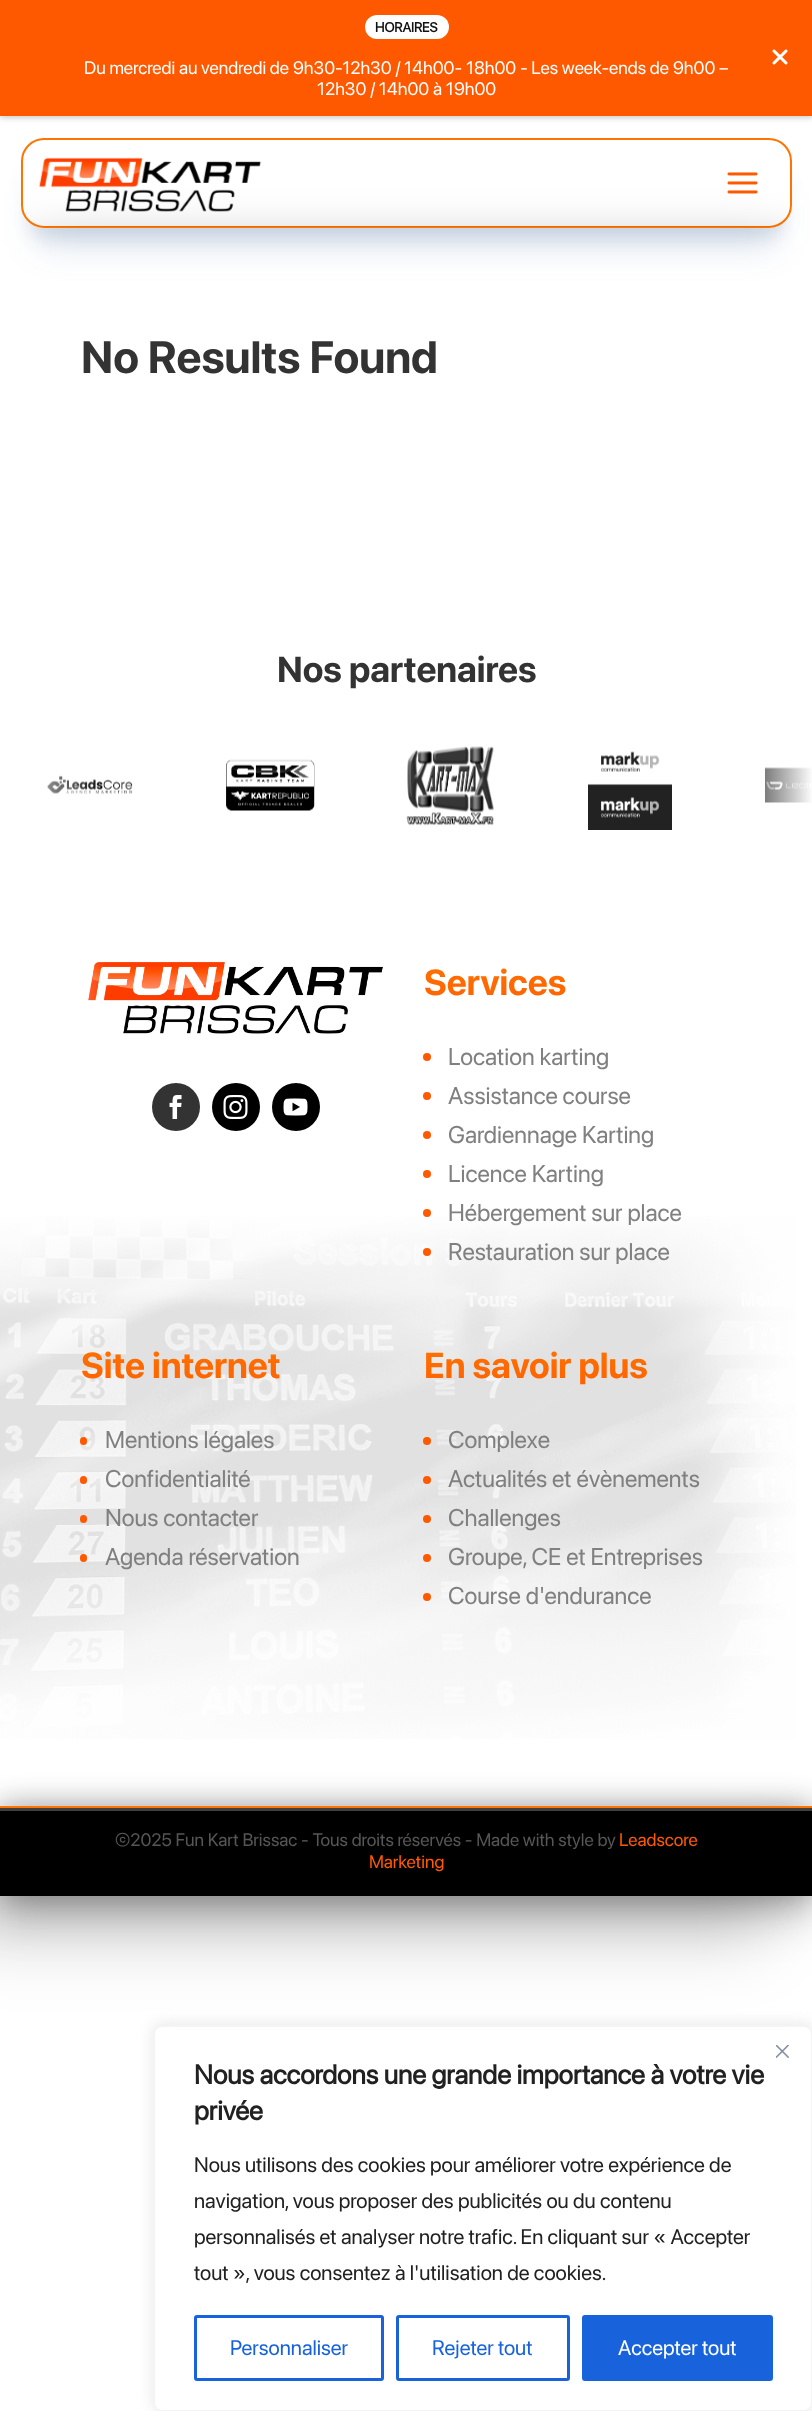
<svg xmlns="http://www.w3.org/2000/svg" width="812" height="2411">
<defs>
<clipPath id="clip1"><path d="M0 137h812v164h-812zm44 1h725c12.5 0 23 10.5 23 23v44c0 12.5-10.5 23-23 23h-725c-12.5 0-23-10.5-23-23v-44c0-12.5 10.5-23 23-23z" clip-rule="evenodd"/></clipPath>
<clipPath id="clip2"><path d="M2 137h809v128h-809zm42 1h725c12.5 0 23 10.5 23 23v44c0 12.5-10.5 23-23 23h-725c-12.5 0-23-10.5-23-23v-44c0-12.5 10.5-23 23-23z" clip-rule="evenodd"/></clipPath>
<linearGradient id="g1" gradientUnits="userSpaceOnUse" x1="0" y1="786" x2="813" y2="786"><stop offset="0" stop-color="#fff"/><stop offset="0.13" stop-color="#fff" stop-opacity="0"/><stop offset="0.9" stop-color="#fff" stop-opacity="0"/><stop offset="1" stop-color="#fff"/></linearGradient>
<clipPath id="clip3"><rect x="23" y="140" width="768" height="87" rx="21"/></clipPath>
<linearGradient id="g2" gradientUnits="userSpaceOnUse" x1="495" y1="958" x2="495" y2="1023"><stop offset="0" stop-color="#ff7400"/><stop offset="1" stop-color="#ff5900"/></linearGradient>
<linearGradient id="g3" gradientUnits="userSpaceOnUse" x1="181" y1="1341" x2="181" y2="1406"><stop offset="0" stop-color="#ff7400"/><stop offset="1" stop-color="#ff5900"/></linearGradient>
<linearGradient id="g4" gradientUnits="userSpaceOnUse" x1="536" y1="1341" x2="536" y2="1406"><stop offset="0" stop-color="#ff7400"/><stop offset="1" stop-color="#ff5900"/></linearGradient>
</defs>
<rect width="100%" height="100%" fill="#fff"/>
<rect y="2" width="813" height="115" fill="#00000040" filter="blur(3px)"/>
<rect width="812" height="116" fill="#ff5900"/>
<rect x="365" y="15" width="84" height="24" rx="12" fill="#fff"/>
<text x="375" y="32" style="font-family:'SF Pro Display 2';font-size:13.5px;font-weight:bold;fill:#111">HORAIRES</text>
<image x="772" y="49" width="16" height="16" href="media/1.png"/>
<text x="84" y="74" style="font-family:SF Pro Display;font-size:18px;fill:#fff">Du mercredi au vendredi de 9h30-12h30 / 14h00- 18h00 - Les week-ends de 9h00 –</text>
<text x="317" y="95" style="font-family:SF Pro Display;font-size:18px;fill:#fff">12h30 / 14h00 à 19h00</text>
<g clip-path="url(#clip1)">
<rect x="39" y="192" width="735" height="54" rx="5" fill="#0e3f7e24" filter="blur(18px)"/>
</g>
<g clip-path="url(#clip2)">
<rect x="30" y="165" width="753" height="72" rx="14" fill="#0e3f7e24" filter="blur(9px)"/>
</g>
<rect x="22" y="139" width="769" height="88" rx="22" fill="none" stroke="#ff7400" stroke-width="2"/>
<image x="38" y="157" width="223" height="55" href="media/2.png"/>
<image x="727" y="172" width="31" height="22" href="media/3.png"/>
<image x="47" y="775" width="86" height="19" href="media/4.png"/>
<image x="226" y="759" width="89" height="52" href="media/5.png"/>
<image x="406" y="746" width="88" height="80" href="media/6.png"/>
<image x="588" y="751" width="84" height="79" href="media/7.png"/>
<image x="765" y="767" width="47" height="36" href="media/8.png"/>
<image x="88" y="962" width="295" height="72" href="media/10.png"/>
<rect x="47" y="767" width="765" height="234" fill="url(#g1)"/>
<circle cx="427" cy="1057" r="4" fill="#ff5900"/>
<g clip-path="url(#clip3)">
<rect x="23" y="267" width="777" height="716" rx="23" fill="#000000bf" filter="blur(33px)"/>
</g>
<text x="81" y="373" style="font-family:SF Pro Display;font-size:45px;font-weight:bold;fill:#333">No Results Found</text>
<text x="277" y="682" style="font-family:SF Pro Display;font-size:36px;font-weight:bold;fill:#333">Nos partenaires</text>
<image x="0" y="1216" width="796" height="523" href="media/9.png"/>
<circle cx="176" cy="1107" r="24" fill="#333"/>
<image x="169" y="1095" width="13" height="24" href="media/11.png"/>
<circle cx="236" cy="1107" r="24" fill="#000"/>
<image x="223" y="1095" width="25" height="24" href="media/12.png"/>
<circle cx="296" cy="1107" r="24" fill="#000"/>
<image x="283" y="1098" width="25" height="18" href="media/13.png"/>
<text x="424" y="995" style="font-family:SF Pro Display;font-size:36px;font-weight:bold;fill:url(#g2)">Services</text>
<text x="448" y="1065" style="font-family:SF Pro Display;font-size:24px;fill:#808080">Location karting</text>
<circle cx="427" cy="1096" r="4" fill="#ff5900"/>
<text x="448" y="1104" style="font-family:SF Pro Display;font-size:24px;fill:#808080">Assistance course</text>
<circle cx="427" cy="1135" r="4" fill="#ff5900"/>
<text x="448" y="1143" style="font-family:SF Pro Display;font-size:24px;fill:#808080">Gardiennage Karting</text>
<circle cx="427" cy="1174" r="4" fill="#ff5900"/>
<text x="448" y="1182" style="font-family:SF Pro Display;font-size:24px;fill:#808080">Licence Karting</text>
<circle cx="427" cy="1213" r="4" fill="#ff5900"/>
<text x="448" y="1221" style="font-family:SF Pro Display;font-size:24px;fill:#808080">Hébergement sur place</text>
<circle cx="427" cy="1252" r="4" fill="#ff5900"/>
<text x="448" y="1260" style="font-family:SF Pro Display;font-size:24px;fill:#808080">Restauration sur place</text>
<text x="81" y="1378" style="font-family:SF Pro Display;font-size:36px;font-weight:bold;fill:url(#g3)">Site internet</text>
<rect x="80" y="1437" width="7" height="8" rx="3.5" fill="#ff5900"/>
<text x="105" y="1448" style="font-family:SF Pro Display;font-size:24px;fill:#808080">Mentions légales</text>
<rect x="80" y="1476" width="7" height="8" rx="3.5" fill="#ff5900"/>
<text x="105" y="1487" style="font-family:SF Pro Display;font-size:24px;fill:#808080">Confidentialité</text>
<rect x="80" y="1515" width="7" height="8" rx="3.5" fill="#ff5900"/>
<text x="105" y="1526" style="font-family:SF Pro Display;font-size:24px;fill:#808080">Nous contacter</text>
<rect x="80" y="1554" width="7" height="8" rx="3.5" fill="#ff5900"/>
<text x="105" y="1565" style="font-family:SF Pro Display;font-size:24px;fill:#808080">Agenda réservation</text>
<text x="424" y="1378" style="font-family:SF Pro Display;font-size:36px;font-weight:bold;fill:url(#g4)">En savoir plus</text>
<circle cx="427" cy="1441" r="4" fill="#ff5900"/>
<text x="448" y="1448" style="font-family:SF Pro Display;font-size:24px;fill:#808080">Complexe</text>
<circle cx="427" cy="1480" r="4" fill="#ff5900"/>
<text x="448" y="1487" style="font-family:SF Pro Display;font-size:24px;fill:#808080">Actualités et évènements</text>
<circle cx="427" cy="1519" r="4" fill="#ff5900"/>
<text x="448" y="1526" style="font-family:SF Pro Display;font-size:24px;fill:#808080">Challenges</text>
<circle cx="427" cy="1558" r="4" fill="#ff5900"/>
<text x="448" y="1565" style="font-family:SF Pro Display;font-size:24px;fill:#808080">Groupe, CE et Entreprises</text>
<circle cx="427" cy="1597" r="4" fill="#ff5900"/>
<text x="448" y="1604" style="font-family:SF Pro Display;font-size:24px;fill:#808080">Course d'endurance</text>
<rect y="1806" width="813" height="90" fill="#0000004d" filter="blur(15px)"/>
<rect y="1824" width="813" height="90" fill="#00000040" filter="blur(22.5px)"/>
<rect x="-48" y="1854" width="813" height="90" fill="#00000026" filter="blur(33px)"/>
<rect y="1811" width="812" height="85" fill="#000"/>
<rect y="1808" width="812" height="3" fill="#404040"/>
<rect y="1806" width="812" height="2" fill="#ff7400"/>
<text x="115" y="1846" style="font-family:SF Pro Display;font-size:18px;fill:#565656">©2025 Fun Kart Brissac - Tous droits réservés - Made with style by</text>
<text x="619" y="1846" style="font-family:SF Pro Display;font-size:18px;fill:#ff5900">Leadscore</text>
<text x="369" y="1868" style="font-family:SF Pro Display;font-size:18px;fill:#ff5900">Marketing</text>
<rect x="153" y="2024" width="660" height="387" rx="9" fill="#acabab4d" filter="blur(7.5px)"/>
<rect x="154" y="2026" width="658" height="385" rx="8" fill="#fff" stroke="#f4f4f4" stroke-width="2"/>
<image x="776" y="2045" width="13" height="13" href="media/14.png"/>
<text x="194" y="2084" style="font-family:'SF Pro Display 2';font-size:27px;font-weight:bold;fill:#212121">Nous accordons une grande importance à votre vie</text>
<text x="194" y="2120" style="font-family:'SF Pro Display 2';font-size:27px;font-weight:bold;fill:#212121">privée</text>
<text x="194" y="2172" style="font-family:SF Pro Display;font-size:21px;fill:#212121">Nous utilisons des cookies pour améliorer votre expérience de</text>
<text x="194" y="2208" style="font-family:SF Pro Display;font-size:21px;fill:#212121">navigation, vous proposer des publicités ou du contenu</text>
<text x="194" y="2244" style="font-family:SF Pro Display;font-size:21px;fill:#212121">personnalisés et analyser notre trafic. En cliquant sur « Accepter</text>
<text x="194" y="2280" style="font-family:SF Pro Display;font-size:21px;fill:#212121">tout », vous consentez à l'utilisation de cookies.</text>
<rect x="195.5" y="2316.5" width="187" height="63" rx="1.5" fill="none" stroke="#1863dc" stroke-width="3"/>
<text x="230" y="2355" style="font-family:SF Pro Display;font-size:21px;fill:#1863dc">Personnaliser</text>
<rect x="397.5" y="2316.5" width="171" height="63" rx="1.5" fill="none" stroke="#1863dc" stroke-width="3"/>
<text x="432" y="2355" style="font-family:SF Pro Display;font-size:21px;fill:#1863dc">Rejeter tout</text>
<rect x="583.5" y="2316.5" width="188" height="63" rx="1.5" fill="#1863dc" stroke="#1863dc" stroke-width="3"/>
<text x="618" y="2355" style="font-family:SF Pro Display;font-size:21px;fill:#fff">Accepter tout</text>
</svg>
